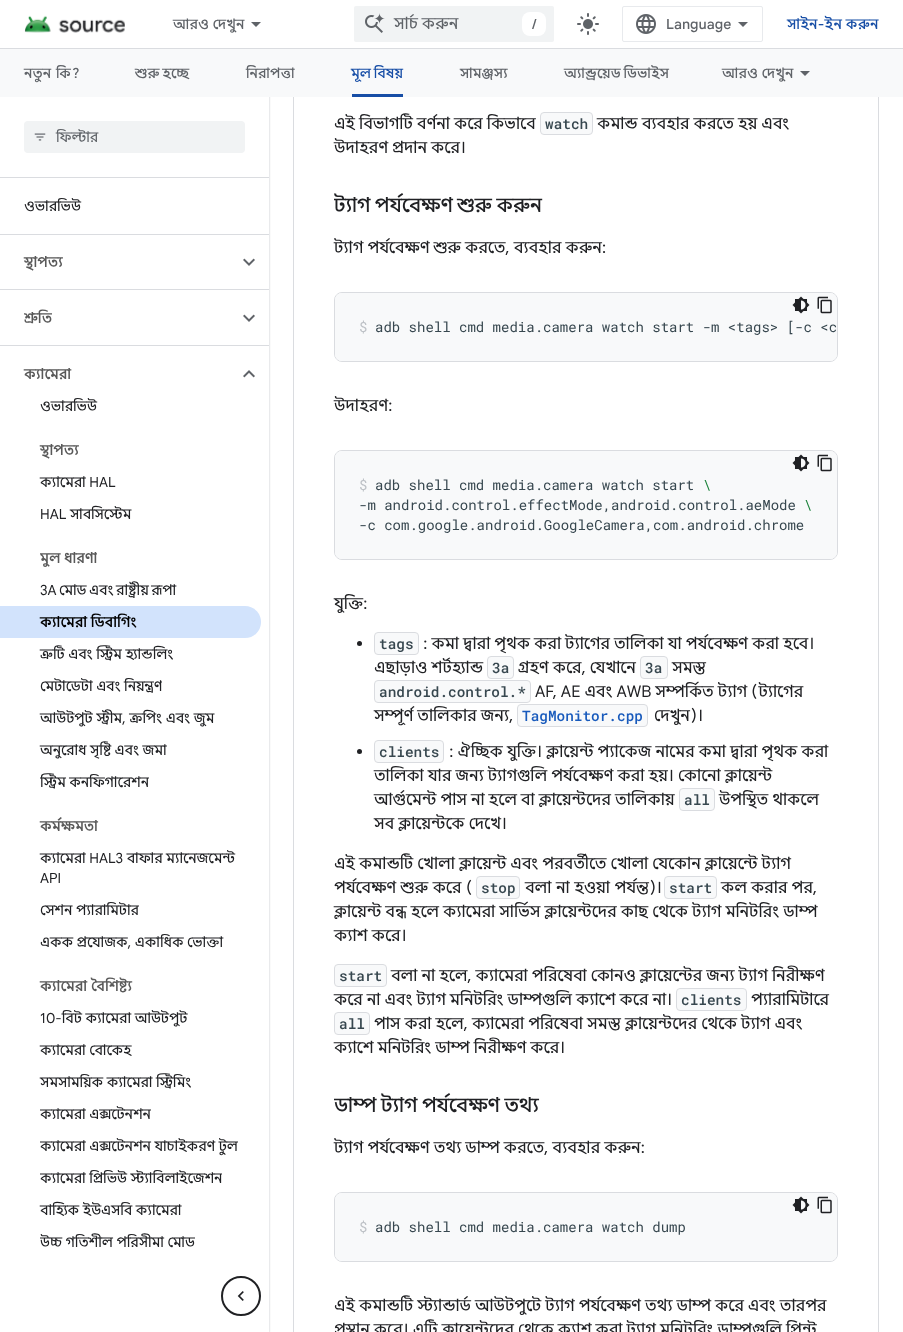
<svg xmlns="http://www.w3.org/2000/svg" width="903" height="1332">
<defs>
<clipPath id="clip1"><rect x="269" y="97" width="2" height="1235"/></clipPath>
<clipPath id="clip2"><rect x="24" y="302" width="28" height="32"/></clipPath>
<clipPath id="clip3"><rect x="40" y="390" width="57" height="942"/></clipPath>
<clipPath id="clip4"><rect x="40" y="390" width="122" height="942"/></clipPath>
<clipPath id="clip5"><rect x="40" y="390" width="109" height="942"/></clipPath>
<clipPath id="clip6"><rect x="40" y="390" width="99" height="942"/></clipPath>
<clipPath id="clip7"><rect x="40" y="390" width="111" height="942"/></clipPath>
<clipPath id="clip8"><rect x="40" y="390" width="198" height="942"/></clipPath>
<clipPath id="clip9"><rect x="40" y="390" width="182" height="942"/></clipPath>
<clipPath id="clip10"><rect x="40" y="390" width="155" height="942"/></clipPath>
<clipPath id="clip11"><rect x="334" width="504" height="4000"/></clipPath>
</defs>
<rect width="100%" height="100%" fill="#fff"/>
<g clip-path="url(#clip1)">
<rect y="1" width="269" height="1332" fill="#bdc1c6" filter="blur(1px)"/>
</g>
<rect x="293.5" y="-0.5" width="585" height="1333" fill="none" stroke="#dadce0"/>
<rect x="269" width="610" height="48" fill="#fff"/>
<rect y="48" width="903" height="1" fill="#dadce0"/>
<image x="24" y="15" width="101" height="18" href="media/1.png"/>
<text x="173" y="29" style="font-family:Google Sans;font-size:14px;font-weight:500;letter-spacing:0.25px;fill:#5f6368">আরও দেখুন</text>
<path d="M251 22h10l-5 5z" fill="#5f6368"/>
<rect x="354" y="6" width="200" height="36" rx="2" fill="#f1f3f4"/>
<image x="365" y="13" width="20" height="20" href="media/2.png"/>
<text x="394" y="29" style="font-family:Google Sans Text;font-size:16px;fill:#5f6368">সার্চ করুন</text>
<rect x="522" y="12" width="24" height="24" rx="8" fill="#fff"/>
<text x="532" y="29" style="font-family:Google Sans;font-size:14px;font-weight:500;fill:#5f6368">/</text>
<image x="577" y="13" width="22" height="22" href="media/3.png"/>
<rect x="622.5" y="6.5" width="140" height="35" rx="1.5" fill="none" stroke="#e8eaed"/>
<image x="636" y="14" width="20" height="20" href="media/4.png"/>
<text x="666" y="29" style="font-family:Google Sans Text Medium;font-size:14px;font-weight:500;fill:#5f6368">Language</text>
<path d="M743 27l-5-5h10z" fill="#5f6368"/>
<text x="787" y="29" style="font-family:Google Sans Text Medium;font-size:14px;font-weight:500;letter-spacing:0.25px;fill:#174ea6">সাইন-ইন করুন</text>
<rect y="49" width="903" height="48" fill="#f8f9fa"/>
<text x="24" y="78" word-spacing="1" style="font-family:Google Sans;font-size:14px;font-weight:500;letter-spacing:0.25px;fill:#5f6368">নতুন কি?</text>
<text x="135" y="78" word-spacing="-1" style="font-family:Google Sans;font-size:14px;font-weight:500;letter-spacing:0.25px;fill:#5f6368">শুরু হচ্ছে</text>
<text x="246" y="78" style="font-family:Google Sans;font-size:14px;font-weight:500;letter-spacing:0.25px;fill:#5f6368">নিরাপত্তা</text>
<text x="351" y="78" word-spacing="-1" style="font-family:Google Sans;font-size:14px;font-weight:500;letter-spacing:0.25px;fill:#174ea6">মূল বিষয়</text>
<rect x="352" y="94" width="51" height="3" fill="#174ea6"/>
<text x="460" y="78" style="font-family:Google Sans;font-size:14px;font-weight:500;letter-spacing:0.25px;fill:#5f6368">সামঞ্জস্য</text>
<text x="564" y="78" word-spacing="-1" style="font-family:Google Sans;font-size:14px;font-weight:500;letter-spacing:0.25px;fill:#5f6368">অ্যান্ড্রয়েড ডিভাইস</text>
<text x="722" y="78" style="font-family:Google Sans;font-size:14px;font-weight:500;letter-spacing:0.25px;fill:#5f6368">আরও দেখুন</text>
<path d="M800 71h10l-5 5z" fill="#5f6368"/>
<rect y="177" width="269" height="1" fill="#dadce0"/>
<rect x="24" y="121" width="221" height="32" rx="4" fill="#f1f3f4"/>
<image x="34" y="133" width="12" height="8" href="media/5.png"/>
<text x="56" y="142" style="font-family:Google Sans Text;font-size:14px;fill:#5f6368">ফিল্টার</text>
<text x="24" y="211" style="font-family:Google Sans Text;font-size:14px;fill:#202124">ওভারভিউ</text>
<rect y="234" width="269" height="1" fill="#dadce0"/>
<rect y="289" width="269" height="1" fill="#dadce0"/>
<text x="24" y="267" style="font-family:Google Sans Text;font-size:14px;font-weight:bold;fill:#595959">স্থাপত্য</text>
<image x="243" y="258" width="12" height="8" href="media/6.png"/>
<rect y="345" width="269" height="1" fill="#dadce0"/>
<g clip-path="url(#clip2)">
<text x="24" y="323" style="font-family:Google Sans Text;font-size:14px;font-weight:bold;fill:#595959">শ্রুতি</text>
</g>
<image x="243" y="314" width="12" height="8" href="media/6.png"/>
<text x="24" y="379" style="font-family:Google Sans Text;font-size:14px;font-weight:bold;fill:#595959">ক্যামেরা</text>
<image x="243" y="370" width="12" height="8" href="media/7.png"/>
<text x="40" y="411" style="font-family:Google Sans Text;font-size:14px;fill:#202124">ওভারভিউ</text>
<text x="40" y="455" style="font-family:Google Sans Text;font-size:14px;font-weight:bold;fill:#595959">স্থাপত্য</text>
<text x="40" y="487" style="font-family:Google Sans Text;font-size:14px;fill:#202124">ক্যামেরা HAL</text>
<text x="40" y="519" style="font-family:Google Sans Text;font-size:14px;fill:#202124">HAL সাবসিস্টেম</text>
<g clip-path="url(#clip3)">
<text x="40" y="563" style="font-family:Google Sans Text;font-size:14px;font-weight:bold;fill:#595959">মুল ধারণা</text>
</g>
<text x="40" y="595" word-spacing="-1" style="font-family:Google Sans Text;font-size:14px;fill:#202124">3A মোড এবং রাষ্ট্রীয় রূপা</text>
<path d="M0 606h245c9 0 16 7 16 16c0 9-7 16-16 16h-245z" fill="#d2e3fc"/>
<text x="40" y="627" style="font-family:Google Sans Text;font-size:14px;font-weight:bold;fill:#000">ক্যামেরা ডিবাগিং</text>
<text x="40" y="659" style="font-family:Google Sans Text;font-size:14px;fill:#202124">ত্রুটি এবং স্ট্রিম হ্যান্ডলিং</text>
<g clip-path="url(#clip4)">
<text x="40" y="691" style="font-family:Google Sans Text;font-size:14px;fill:#202124">মেটাডেটা এবং নিয়ন্ত্রণ</text>
</g>
<text x="40" y="723" style="font-family:Google Sans Text;font-size:14px;fill:#202124">আউটপুট স্ট্রীম, ক্রপিং এবং জুম</text>
<text x="40" y="755" style="font-family:Google Sans Text;font-size:14px;fill:#202124">অনুরোধ সৃষ্টি এবং জমা</text>
<g clip-path="url(#clip5)">
<text x="40" y="787" style="font-family:Google Sans Text;font-size:14px;fill:#202124">স্ট্রিম কনফিগারেশন</text>
</g>
<text x="40" y="831" style="font-family:Google Sans Text;font-size:14px;font-weight:bold;fill:#595959">কর্মক্ষমতা</text>
<text x="40" y="863" style="font-family:Google Sans Text;font-size:14px;fill:#202124">ক্যামেরা HAL3 বাফার ম্যানেজমেন্ট</text>
<text x="40" y="883" style="font-family:Google Sans Text;font-size:14px;fill:#202124">API</text>
<g clip-path="url(#clip6)">
<text x="40" y="915" style="font-family:Google Sans Text;font-size:14px;fill:#202124">সেশন প্যারামিটার</text>
</g>
<text x="40" y="947" style="font-family:Google Sans Text;font-size:14px;fill:#202124">একক প্রযোজক, একাধিক ভোক্তা</text>
<text x="40" y="991" style="font-family:Google Sans Text;font-size:14px;font-weight:bold;fill:#595959">ক্যামেরা বৈশিষ্ট্য</text>
<text x="40" y="1023" style="font-family:Google Sans Text;font-size:14px;fill:#202124">10-বিট ক্যামেরা আউটপুট</text>
<text x="40" y="1055" style="font-family:Google Sans Text;font-size:14px;fill:#202124">ক্যামেরা বোকেহ</text>
<text x="40" y="1087" style="font-family:Google Sans Text;font-size:14px;fill:#202124">সমসাময়িক ক্যামেরা স্ট্রিমিং</text>
<g clip-path="url(#clip7)">
<text x="40" y="1119" style="font-family:Google Sans Text;font-size:14px;fill:#202124">ক্যামেরা এক্সটেনশন</text>
</g>
<g clip-path="url(#clip8)">
<text x="40" y="1151" style="font-family:Google Sans Text;font-size:14px;fill:#202124">ক্যামেরা এক্সটেনশন যাচাইকরণ টুল</text>
</g>
<g clip-path="url(#clip9)">
<text x="40" y="1183" style="font-family:Google Sans Text;font-size:14px;fill:#202124">ক্যামেরা প্রিভিউ স্ট্যাবিলাইজেশন</text>
</g>
<text x="40" y="1215" style="font-family:Google Sans Text;font-size:14px;fill:#202124">বাহ্যিক ইউএসবি ক্যামেরা</text>
<g clip-path="url(#clip10)">
<text x="40" y="1247" style="font-family:Google Sans Text;font-size:14px;fill:#202124">উচ্চ গতিশীল পরিসীমা মোড</text>
</g>
<text x="334" y="129" style="font-family:Google Sans Text;font-size:16px;fill:#202124">এই বিভাগটি বর্ণনা করে কিভাবে</text>
<rect x="540.5" y="112.5" width="52" height="22" rx="3.5" fill="#f8f9fa" stroke="#dadce0"/>
<text x="545" y="129" style="font-family:Roboto Mono;font-size:14.4px;font-weight:500;fill:#37474f">watch</text>
<text x="597" y="129" style="font-family:Google Sans Text;font-size:16px;fill:#202124">কমান্ড ব্যবহার করতে হয় এবং</text>
<text x="334" y="153" style="font-family:Google Sans Text;font-size:16px;fill:#202124">উদাহরণ প্রদান করে।</text>
<g clip-path="url(#clip11)">
<text x="334" y="212" style="font-family:Google Sans;font-size:20px;font-weight:500;fill:#202124">ট্যাগ পর্যবেক্ষণ শুরু করুন</text>
</g>
<text x="334" y="253" style="font-family:Google Sans Text;font-size:16px;fill:#202124">ট্যাগ পর্যবেক্ষণ শুরু করতে, ব্যবহার করুন:</text>
<rect x="334.5" y="292.5" width="503" height="69" rx="7.5" fill="none" stroke="#dadce0"/>
<rect x="335" y="293" width="502" height="68" rx="7" fill="#f8f9fa"/>
<image x="792" y="296" width="18" height="18" href="media/8.png"/>
<image x="817" y="296" width="15" height="18" href="media/9.png"/>
<text x="359" y="332" style="font-family:Roboto Mono;font-size:14px;fill:#bdc1c6">$</text>
<text x="375" y="332" style="font-family:Roboto Mono;font-size:14px;fill:#37474f">adb shell cmd media.camera watch start -m &lt;tags&gt; [-c &lt;c</text>
<text x="334" y="411" style="font-family:Google Sans Text;font-size:16px;fill:#202124">উদাহরণ:</text>
<rect x="334.5" y="450.5" width="503" height="109" rx="7.5" fill="none" stroke="#dadce0"/>
<rect x="335" y="451" width="502" height="108" rx="7" fill="#f8f9fa"/>
<image x="792" y="454" width="18" height="18" href="media/8.png"/>
<image x="817" y="454" width="15" height="18" href="media/9.png"/>
<text x="359" y="490" style="font-family:Roboto Mono;font-size:14px;fill:#bdc1c6">$</text>
<text x="375" y="490" style="font-family:Roboto Mono;font-size:14px;fill:#37474f">adb shell cmd media.camera watch start</text>
<text x="703" y="490" style="font-family:Roboto Mono;font-size:14px;fill:#188038">\</text>
<text x="359" y="510" style="font-family:Roboto Mono;font-size:14px;fill:#37474f">-m android.control.effectMode,android.control.aeMode</text>
<text x="804" y="510" style="font-family:Roboto Mono;font-size:14px;fill:#188038">\</text>
<text x="359" y="530" style="font-family:Roboto Mono;font-size:14px;fill:#37474f">-c com.google.android.GoogleCamera,com.android.chrome</text>
<text x="334" y="609" style="font-family:Google Sans Text;font-size:16px;fill:#202124">যুক্তি:</text>
<circle cx="359.5" cy="643.5" r="2.5" fill="#202124"/>
<rect x="374.5" y="632.5" width="44" height="22" rx="3.5" fill="#f8f9fa" stroke="#dadce0"/>
<text x="379" y="649" style="font-family:Roboto Mono;font-size:14.4px;font-weight:500;fill:#37474f">tags</text>
<text x="423" y="649" style="font-family:Google Sans Text;font-size:16px;fill:#202124">: কমা দ্বারা পৃথক করা ট্যাগের তালিকা যা পর্যবেক্ষণ করা হবে।</text>
<text x="374" y="673" style="font-family:Google Sans Text;font-size:16px;fill:#202124">এছাড়াও শর্টহ্যান্ড</text>
<rect x="487.5" y="656.5" width="26" height="22" rx="3.5" fill="#f8f9fa" stroke="#dadce0"/>
<text x="492" y="673" style="font-family:Roboto Mono;font-size:14.4px;font-weight:500;fill:#37474f">3a</text>
<text x="518" y="673" style="font-family:Google Sans Text;font-size:16px;fill:#202124">গ্রহণ করে, যেখানে</text>
<rect x="640.5" y="656.5" width="27" height="22" rx="3.5" fill="#f8f9fa" stroke="#dadce0"/>
<text x="645" y="673" style="font-family:Roboto Mono;font-size:14.4px;font-weight:500;fill:#37474f">3a</text>
<text x="672" y="673" style="font-family:Google Sans Text;font-size:16px;fill:#202124">সমস্ত</text>
<rect x="374.5" y="680.5" width="156" height="22" rx="3.5" fill="#f8f9fa" stroke="#dadce0"/>
<text x="379" y="697" style="font-family:Roboto Mono;font-size:14.4px;font-weight:500;fill:#37474f">android.control.*</text>
<text x="535" y="697" style="font-family:Google Sans Text;font-size:16px;fill:#202124">AF, AE এবং AWB সম্পর্কিত ট্যাগ (ট্যাগের</text>
<text x="374" y="721" style="font-family:Google Sans Text;font-size:16px;fill:#202124">সম্পূর্ণ তালিকার জন্য,</text>
<rect x="517.5" y="704.5" width="130" height="22" rx="3.5" fill="#f8f9fa" stroke="#dadce0"/>
<text x="522" y="721" style="font-family:Roboto Mono;font-size:14.4px;font-weight:500;fill:#185abc">TagMonitor.cpp</text>
<text x="654" y="721" style="font-family:Google Sans Text;font-size:16px;fill:#202124">দেখুন)।</text>
<circle cx="359.5" cy="751.5" r="2.5" fill="#202124"/>
<rect x="374.5" y="740.5" width="69" height="22" rx="3.5" fill="#f8f9fa" stroke="#dadce0"/>
<text x="379" y="757" style="font-family:Roboto Mono;font-size:14.4px;font-weight:500;fill:#37474f">clients</text>
<text x="449" y="757" style="font-family:Google Sans Text;font-size:16px;fill:#202124">: ঐচ্ছিক যুক্তি। ক্লায়েন্ট প্যাকেজ নামের কমা দ্বারা পৃথক করা</text>
<text x="374" y="781" style="font-family:Google Sans Text;font-size:16px;fill:#202124">তালিকা যার জন্য ট্যাগগুলি পর্যবেক্ষণ করা হয়। কোনো ক্লায়েন্ট</text>
<text x="374" y="805" style="font-family:Google Sans Text;font-size:16px;fill:#202124">আর্গুমেন্ট পাস না হলে বা ক্লায়েন্টদের তালিকায়</text>
<rect x="679.5" y="788.5" width="35" height="22" rx="3.5" fill="#f8f9fa" stroke="#dadce0"/>
<text x="684" y="805" style="font-family:Roboto Mono;font-size:14.4px;font-weight:500;fill:#37474f">all</text>
<text x="719" y="805" style="font-family:Google Sans Text;font-size:16px;fill:#202124">উপস্থিত থাকলে</text>
<text x="374" y="829" style="font-family:Google Sans Text;font-size:16px;fill:#202124">সব ক্লায়েন্টকে দেখে।</text>
<text x="334" y="869" style="font-family:Google Sans Text;font-size:16px;fill:#202124">এই কমান্ডটি খোলা ক্লায়েন্ট এবং পরবর্তীতে খোলা যেকোন ক্লায়েন্টে ট্যাগ</text>
<text x="334" y="893" word-spacing="0.5" style="font-family:Google Sans Text;font-size:16px;fill:#202124">পর্যবেক্ষণ শুরু করে (</text>
<rect x="476.5" y="876.5" width="43" height="22" rx="3.5" fill="#f8f9fa" stroke="#dadce0"/>
<text x="481" y="893" style="font-family:Roboto Mono;font-size:14.4px;font-weight:500;fill:#37474f">stop</text>
<text x="525" y="893" word-spacing="0.5" style="font-family:Google Sans Text;font-size:16px;fill:#202124">বলা না হওয়া পর্যন্ত)।</text>
<rect x="664.5" y="876.5" width="52" height="22" rx="3.5" fill="#f8f9fa" stroke="#dadce0"/>
<text x="669" y="893" style="font-family:Roboto Mono;font-size:14.4px;font-weight:500;fill:#37474f">start</text>
<text x="721" y="893" style="font-family:Google Sans Text;font-size:16px;fill:#202124">কল করার পর,</text>
<text x="334" y="917" style="font-family:Google Sans Text;font-size:16px;fill:#202124">ক্লায়েন্ট বন্ধ হলে ক্যামেরা সার্ভিস ক্লায়েন্টদের কাছ থেকে ট্যাগ মনিটরিং ডাম্প</text>
<text x="334" y="941" style="font-family:Google Sans Text;font-size:16px;fill:#202124">ক্যাশ করে।</text>
<rect x="334.5" y="964.5" width="52" height="22" rx="3.5" fill="#f8f9fa" stroke="#dadce0"/>
<text x="339" y="981" style="font-family:Roboto Mono;font-size:14.4px;font-weight:500;fill:#37474f">start</text>
<text x="391" y="981" style="font-family:Google Sans Text;font-size:16px;fill:#202124">বলা না হলে, ক্যামেরা পরিষেবা কোনও ক্লায়েন্টের জন্য ট্যাগ নিরীক্ষণ</text>
<text x="334" y="1005" style="font-family:Google Sans Text;font-size:16px;fill:#202124">করে না এবং ট্যাগ মনিটরিং ডাম্পগুলি ক্যাশে করে না।</text>
<rect x="676.5" y="988.5" width="70" height="22" rx="3.5" fill="#f8f9fa" stroke="#dadce0"/>
<text x="681" y="1005" style="font-family:Roboto Mono;font-size:14.4px;font-weight:500;fill:#37474f">clients</text>
<text x="751" y="1005" style="font-family:Google Sans Text;font-size:16px;fill:#202124">প্যারামিটারে</text>
<rect x="334.5" y="1012.5" width="35" height="22" rx="3.5" fill="#f8f9fa" stroke="#dadce0"/>
<text x="339" y="1029" style="font-family:Roboto Mono;font-size:14.4px;font-weight:500;fill:#37474f">all</text>
<text x="374" y="1029" style="font-family:Google Sans Text;font-size:16px;fill:#202124">পাস করা হলে, ক্যামেরা পরিষেবা সমস্ত ক্লায়েন্টদের থেকে ট্যাগ এবং</text>
<text x="334" y="1053" style="font-family:Google Sans Text;font-size:16px;fill:#202124">ক্যাশে মনিটরিং ডাম্প নিরীক্ষণ করে।</text>
<g clip-path="url(#clip11)">
<text x="334" y="1112" style="font-family:Google Sans;font-size:20px;font-weight:500;fill:#202124">ডাম্প ট্যাগ পর্যবেক্ষণ তথ্য</text>
</g>
<text x="334" y="1153" style="font-family:Google Sans Text;font-size:16px;fill:#202124">ট্যাগ পর্যবেক্ষণ তথ্য ডাম্প করতে, ব্যবহার করুন:</text>
<rect x="334.5" y="1192.5" width="503" height="69" rx="7.5" fill="none" stroke="#dadce0"/>
<rect x="335" y="1193" width="502" height="68" rx="7" fill="#f8f9fa"/>
<image x="792" y="1196" width="18" height="18" href="media/8.png"/>
<image x="817" y="1196" width="15" height="18" href="media/9.png"/>
<text x="359" y="1232" style="font-family:Roboto Mono;font-size:14px;fill:#bdc1c6">$</text>
<text x="375" y="1232" style="font-family:Roboto Mono;font-size:14px;fill:#37474f">adb shell cmd media.camera watch dump</text>
<text x="334" y="1311" style="font-family:Google Sans Text;font-size:16px;fill:#202124">এই কমান্ডটি স্ট্যান্ডার্ড আউটপুটে ট্যাগ পর্যবেক্ষণ তথ্য ডাম্প করে এবং তারপর</text>
<text x="334" y="1335" style="font-family:Google Sans Text;font-size:16px;fill:#202124">প্রস্থান করে। এটি ক্লায়েন্টদের থেকে ক্যাশ করা ট্যাগ মনিটরিং ডাম্পগুলি প্রিন্ট</text>
<circle cx="241" cy="1296" r="19" fill="none" stroke="#202124" stroke-width="2"/>
<image x="237" y="1291" width="7" height="10" href="media/10.png"/>
</svg>
